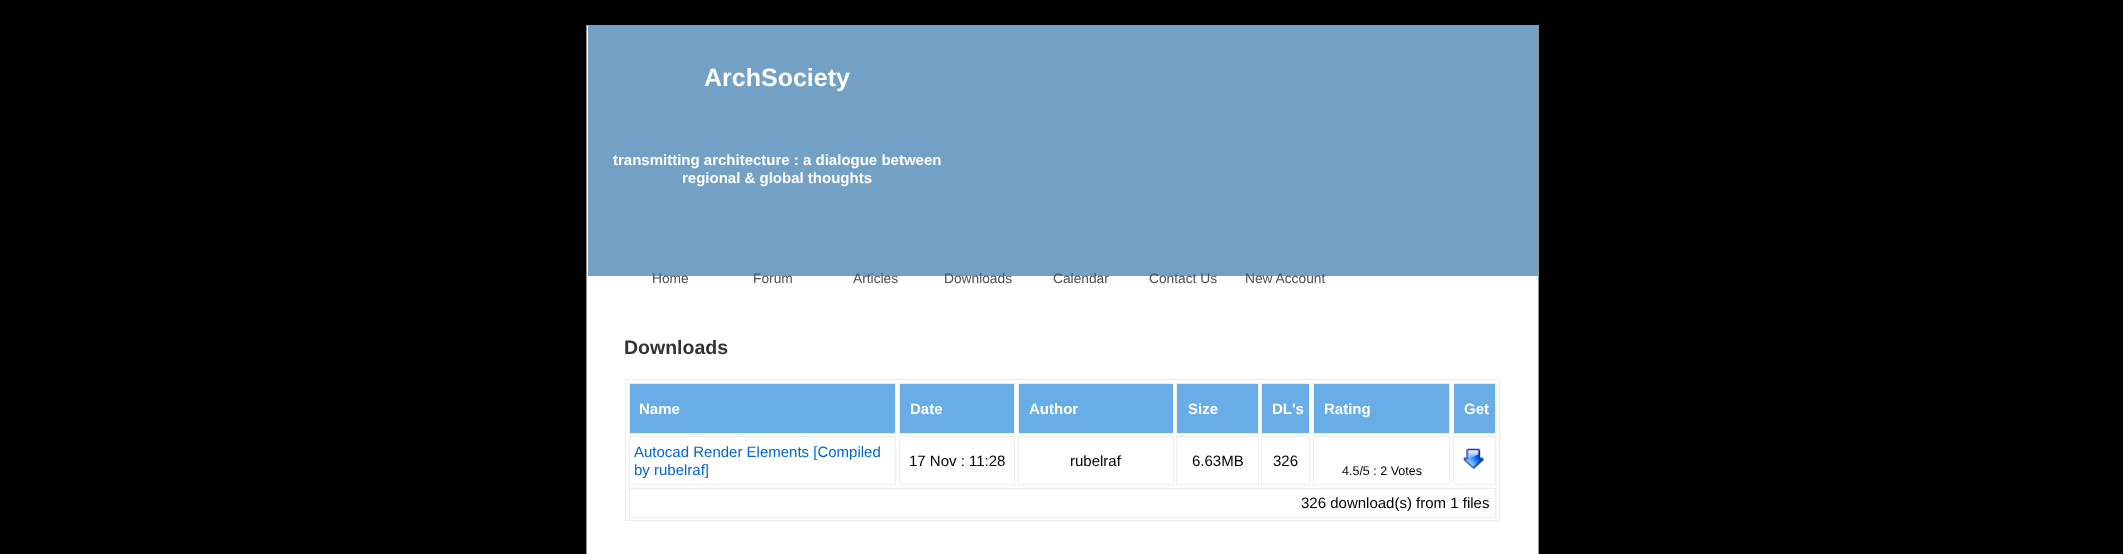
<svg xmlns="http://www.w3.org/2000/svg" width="2123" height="554">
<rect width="100%" height="100%" fill="#000"/>
<rect x="586.5" y="25.5" width="952" height="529" fill="#fff" stroke="#959596"/>
<rect x="588" y="26" width="950" height="250" fill="#73a0c5"/>
<text x="704" y="86" style="font-family:Liberation Sans;font-size:25px;font-weight:bold;fill:#fff">ArchSociety</text>
<text x="613" y="165" style="font-family:Liberation Sans;font-size:15px;font-weight:bold;fill:#fff">transmitting architecture : a dialogue between</text>
<text x="682" y="183" style="font-family:Liberation Sans;font-size:15px;font-weight:bold;fill:#fff">regional &amp; global thoughts</text>
<text x="652" y="283" style="font-family:Liberation Sans;font-size:13.75px;fill:#4e4e4e">Home</text>
<text x="753" y="283" style="font-family:Liberation Sans;font-size:13.75px;fill:#4e4e4e">Forum</text>
<text x="853" y="283" style="font-family:Liberation Sans;font-size:13.75px;fill:#4e4e4e">Articles</text>
<text x="944" y="283" style="font-family:Liberation Sans;font-size:13.75px;fill:#4e4e4e">Downloads</text>
<text x="1053" y="283" style="font-family:Liberation Sans;font-size:13.75px;fill:#4e4e4e">Calendar</text>
<text x="1149" y="283" style="font-family:Liberation Sans;font-size:13.75px;fill:#4e4e4e">Contact Us</text>
<text x="1245" y="283" style="font-family:Liberation Sans;font-size:13.75px;fill:#4e4e4e">New Account</text>
<text x="624" y="354" style="font-family:Liberation Sans;font-size:19.5px;font-weight:bold;fill:#333">Downloads</text>
<rect x="625.5" y="379.5" width="874" height="141" fill="none" stroke="#ededed"/>
<rect x="629.5" y="383.5" width="266" height="50" fill="#68ade5" stroke="#ededed"/>
<text x="639" y="414" style="font-family:Liberation Sans;font-size:15px;font-weight:bold;fill:#fff">Name</text>
<rect x="899.5" y="383.5" width="115" height="50" fill="#68ade5" stroke="#ededed"/>
<text x="910" y="414" style="font-family:Liberation Sans;font-size:15px;font-weight:bold;fill:#fff">Date</text>
<rect x="1018.5" y="383.5" width="155" height="50" fill="#68ade5" stroke="#ededed"/>
<text x="1029" y="414" style="font-family:Liberation Sans;font-size:15px;font-weight:bold;fill:#fff">Author</text>
<rect x="1176.5" y="383.5" width="82" height="50" fill="#68ade5" stroke="#ededed"/>
<text x="1188" y="414" style="font-family:Liberation Sans;font-size:15px;font-weight:bold;fill:#fff">Size</text>
<rect x="1261.5" y="383.5" width="48" height="50" fill="#68ade5" stroke="#ededed"/>
<text x="1272" y="414" style="font-family:Liberation Sans;font-size:15px;font-weight:bold;fill:#fff">DL's</text>
<rect x="1313.5" y="383.5" width="136" height="50" fill="#68ade5" stroke="#ededed"/>
<text x="1324" y="414" style="font-family:Liberation Sans;font-size:15px;font-weight:bold;fill:#fff">Rating</text>
<rect x="1453.5" y="383.5" width="42" height="50" fill="#68ade5" stroke="#ededed"/>
<text x="1464" y="414" style="font-family:Liberation Sans;font-size:15px;font-weight:bold;fill:#fff">Get</text>
<rect x="629.5" y="436.5" width="266" height="48" fill="none" stroke="#ededed"/>
<text x="634" y="457" style="font-family:Liberation Sans;font-size:15px;fill:#06c">Autocad Render Elements [Compiled</text>
<text x="634" y="475" style="font-family:Liberation Sans;font-size:15px;fill:#06c">by rubelraf]</text>
<rect x="899.5" y="436.5" width="115" height="48" fill="none" stroke="#ededed"/>
<text x="909" y="466" style="font-family:Liberation Sans;font-size:15px;fill:#000">17 Nov : 11:28</text>
<rect x="1018.5" y="436.5" width="155" height="48" fill="none" stroke="#ededed"/>
<text x="1070" y="466" style="font-family:Liberation Sans;font-size:15px;fill:#000">rubelraf</text>
<rect x="1176.5" y="436.5" width="82" height="48" fill="none" stroke="#ededed"/>
<text x="1192" y="466" style="font-family:Liberation Sans;font-size:15px;fill:#000">6.63MB</text>
<rect x="1261.5" y="436.5" width="48" height="48" fill="none" stroke="#ededed"/>
<text x="1273" y="466" style="font-family:Liberation Sans;font-size:15px;fill:#000">326</text>
<rect x="1453.5" y="436.5" width="42" height="48" fill="none" stroke="#ededed"/>
<image x="1463" y="448" width="21" height="21" href="media/1.png"/>
<rect x="1313.5" y="436.5" width="136" height="48" fill="none" stroke="#ededed"/>
<text x="1342" y="475" style="font-family:Liberation Sans;font-size:12.5px;fill:#000">4.5/5 : 2 Votes</text>
<rect x="629.5" y="488.5" width="866" height="29" fill="none" stroke="#ededed"/>
<text x="1301" y="508" style="font-family:Liberation Sans;font-size:15px;fill:#000">326 download(s) from 1 files</text>
</svg>
